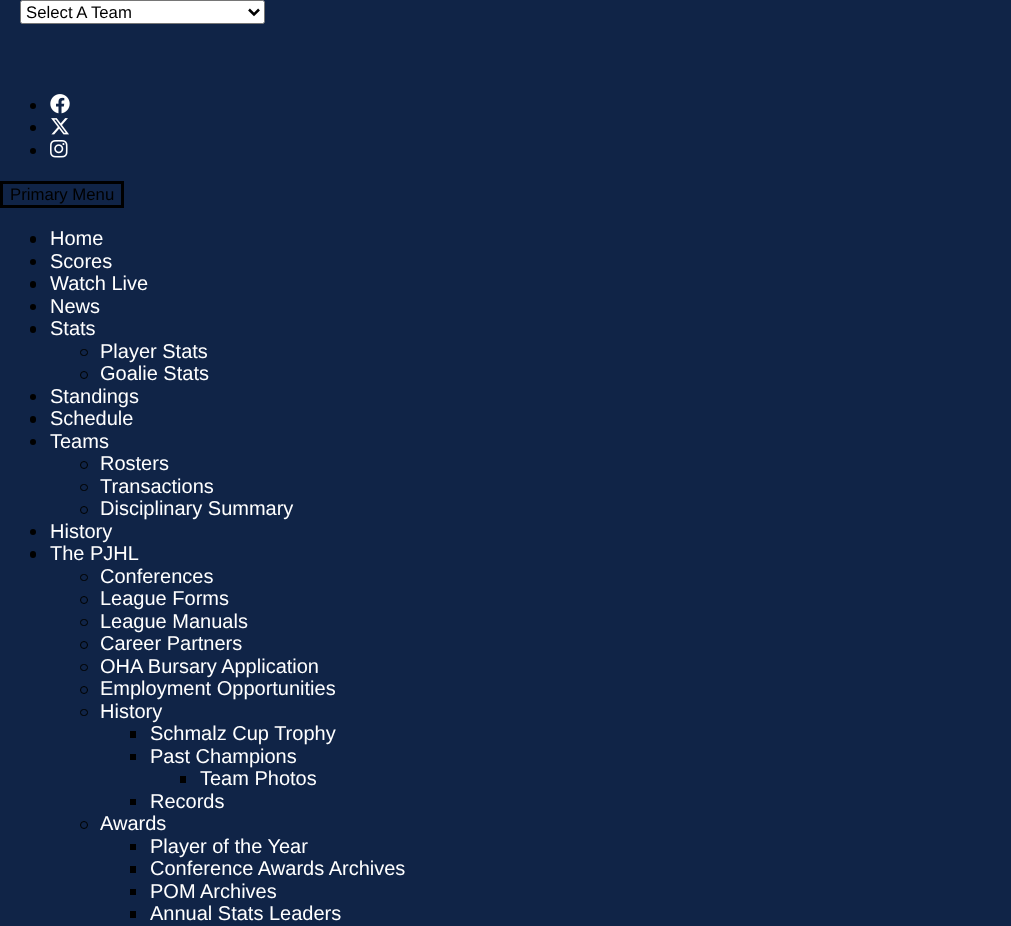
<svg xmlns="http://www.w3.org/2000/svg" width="1011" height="926">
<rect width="100%" height="100%" fill="#102447"/>
<rect x="20.5" y="0.5" width="244" height="23" rx="2" fill="#fff" stroke="#767676"/>
<path d="M249 9.5l5 5l5-5" fill="none" stroke="#000" stroke-width="2.5"/>
<text x="26" y="18" style="font-family:Liberation Sans;font-size:16.75px;fill:#000">Select A Team</text>
<circle cx="33" cy="106" r="3" fill="#000"/>
<image x="50" y="94" width="20" height="20" href="media/1.png"/>
<circle cx="33" cy="128" r="3" fill="#000"/>
<image x="51" y="118" width="18" height="17" href="media/2.png"/>
<circle cx="33" cy="151" r="3" fill="#000"/>
<image x="50" y="140" width="18" height="18" href="media/3.png"/>
<rect x="1.5" y="182.5" width="121" height="24" fill="none" stroke="#000" stroke-width="3"/>
<text x="10" y="200" style="font-family:Liberation Sans;font-size:16.75px;fill:#000">Primary Menu</text>
<rect x="30" y="236" width="6" height="7" rx="3" fill="#000"/>
<text x="50" y="245" style="font-family:Liberation Sans;font-size:20px;fill:#fff">Home</text>
<circle cx="33" cy="262" r="3" fill="#000"/>
<text x="50" y="268" style="font-family:Liberation Sans;font-size:20px;fill:#fff">Scores</text>
<rect x="30" y="281" width="6" height="7" rx="3" fill="#000"/>
<text x="50" y="290" style="font-family:Liberation Sans;font-size:20px;fill:#fff">Watch Live</text>
<circle cx="33" cy="307" r="3" fill="#000"/>
<text x="50" y="313" style="font-family:Liberation Sans;font-size:20px;fill:#fff">News</text>
<rect x="30" y="326" width="6" height="7" rx="3" fill="#000"/>
<text x="50" y="335" style="font-family:Liberation Sans;font-size:20px;fill:#fff">Stats</text>
<rect x="80.5" y="349.5" width="7" height="6" rx="3" fill="none" stroke="#000"/>
<text x="100" y="358" style="font-family:Liberation Sans;font-size:20px;fill:#fff">Player Stats</text>
<circle cx="84" cy="375" r="3.5" fill="none" stroke="#000"/>
<text x="100" y="380" style="font-family:Liberation Sans;font-size:20px;fill:#fff">Goalie Stats</text>
<circle cx="33" cy="397" r="3" fill="#000"/>
<text x="50" y="403" style="font-family:Liberation Sans;font-size:20px;fill:#fff">Standings</text>
<rect x="30" y="416" width="6" height="7" rx="3" fill="#000"/>
<text x="50" y="425" style="font-family:Liberation Sans;font-size:20px;fill:#fff">Schedule</text>
<circle cx="33" cy="442" r="3" fill="#000"/>
<text x="50" y="448" style="font-family:Liberation Sans;font-size:20px;fill:#fff">Teams</text>
<circle cx="84" cy="465" r="3.5" fill="none" stroke="#000"/>
<text x="100" y="470" style="font-family:Liberation Sans;font-size:20px;fill:#fff">Rosters</text>
<rect x="80.5" y="484.5" width="7" height="6" rx="3" fill="none" stroke="#000"/>
<text x="100" y="493" style="font-family:Liberation Sans;font-size:20px;fill:#fff">Transactions</text>
<circle cx="84" cy="510" r="3.5" fill="none" stroke="#000"/>
<text x="100" y="515" style="font-family:Liberation Sans;font-size:20px;fill:#fff">Disciplinary Summary</text>
<circle cx="33" cy="532" r="3" fill="#000"/>
<text x="50" y="538" style="font-family:Liberation Sans;font-size:20px;fill:#fff">History</text>
<rect x="30" y="551" width="6" height="7" rx="3" fill="#000"/>
<text x="50" y="560" style="font-family:Liberation Sans;font-size:20px;fill:#fff">The PJHL</text>
<rect x="80.5" y="574.5" width="7" height="6" rx="3" fill="none" stroke="#000"/>
<text x="100" y="583" style="font-family:Liberation Sans;font-size:20px;fill:#fff">Conferences</text>
<circle cx="84" cy="600" r="3.5" fill="none" stroke="#000"/>
<text x="100" y="605" style="font-family:Liberation Sans;font-size:20px;fill:#fff">League Forms</text>
<rect x="80.5" y="619.5" width="7" height="6" rx="3" fill="none" stroke="#000"/>
<text x="100" y="628" style="font-family:Liberation Sans;font-size:20px;fill:#fff">League Manuals</text>
<circle cx="84" cy="645" r="3.5" fill="none" stroke="#000"/>
<text x="100" y="650" style="font-family:Liberation Sans;font-size:20px;fill:#fff">Career Partners</text>
<rect x="80.5" y="664.5" width="7" height="6" rx="3" fill="none" stroke="#000"/>
<text x="100" y="673" style="font-family:Liberation Sans;font-size:20px;fill:#fff">OHA Bursary Application</text>
<circle cx="84" cy="690" r="3.5" fill="none" stroke="#000"/>
<text x="100" y="695" style="font-family:Liberation Sans;font-size:20px;fill:#fff">Employment Opportunities</text>
<rect x="80.5" y="709.5" width="7" height="6" rx="3" fill="none" stroke="#000"/>
<text x="100" y="718" style="font-family:Liberation Sans;font-size:20px;fill:#fff">History</text>
<rect x="130" y="731" width="6" height="7" fill="#000"/>
<text x="150" y="740" style="font-family:Liberation Sans;font-size:20px;fill:#fff">Schmalz Cup Trophy</text>
<rect x="130" y="754" width="6" height="6" fill="#000"/>
<text x="150" y="763" style="font-family:Liberation Sans;font-size:20px;fill:#fff">Past Champions</text>
<rect x="180" y="776" width="6" height="7" fill="#000"/>
<text x="200" y="785" style="font-family:Liberation Sans;font-size:20px;fill:#fff">Team Photos</text>
<rect x="130" y="799" width="6" height="6" fill="#000"/>
<text x="150" y="808" style="font-family:Liberation Sans;font-size:20px;fill:#fff">Records</text>
<circle cx="84" cy="825" r="3.5" fill="none" stroke="#000"/>
<text x="100" y="830" style="font-family:Liberation Sans;font-size:20px;fill:#fff">Awards</text>
<rect x="130" y="844" width="6" height="6" fill="#000"/>
<text x="150" y="853" style="font-family:Liberation Sans;font-size:20px;fill:#fff">Player of the Year</text>
<rect x="130" y="866" width="6" height="7" fill="#000"/>
<text x="150" y="875" style="font-family:Liberation Sans;font-size:20px;fill:#fff">Conference Awards Archives</text>
<rect x="130" y="889" width="6" height="6" fill="#000"/>
<text x="150" y="898" style="font-family:Liberation Sans;font-size:20px;fill:#fff">POM Archives</text>
<rect x="130" y="911" width="6" height="7" fill="#000"/>
<text x="150" y="920" style="font-family:Liberation Sans;font-size:20px;fill:#fff">Annual Stats Leaders</text>
</svg>
